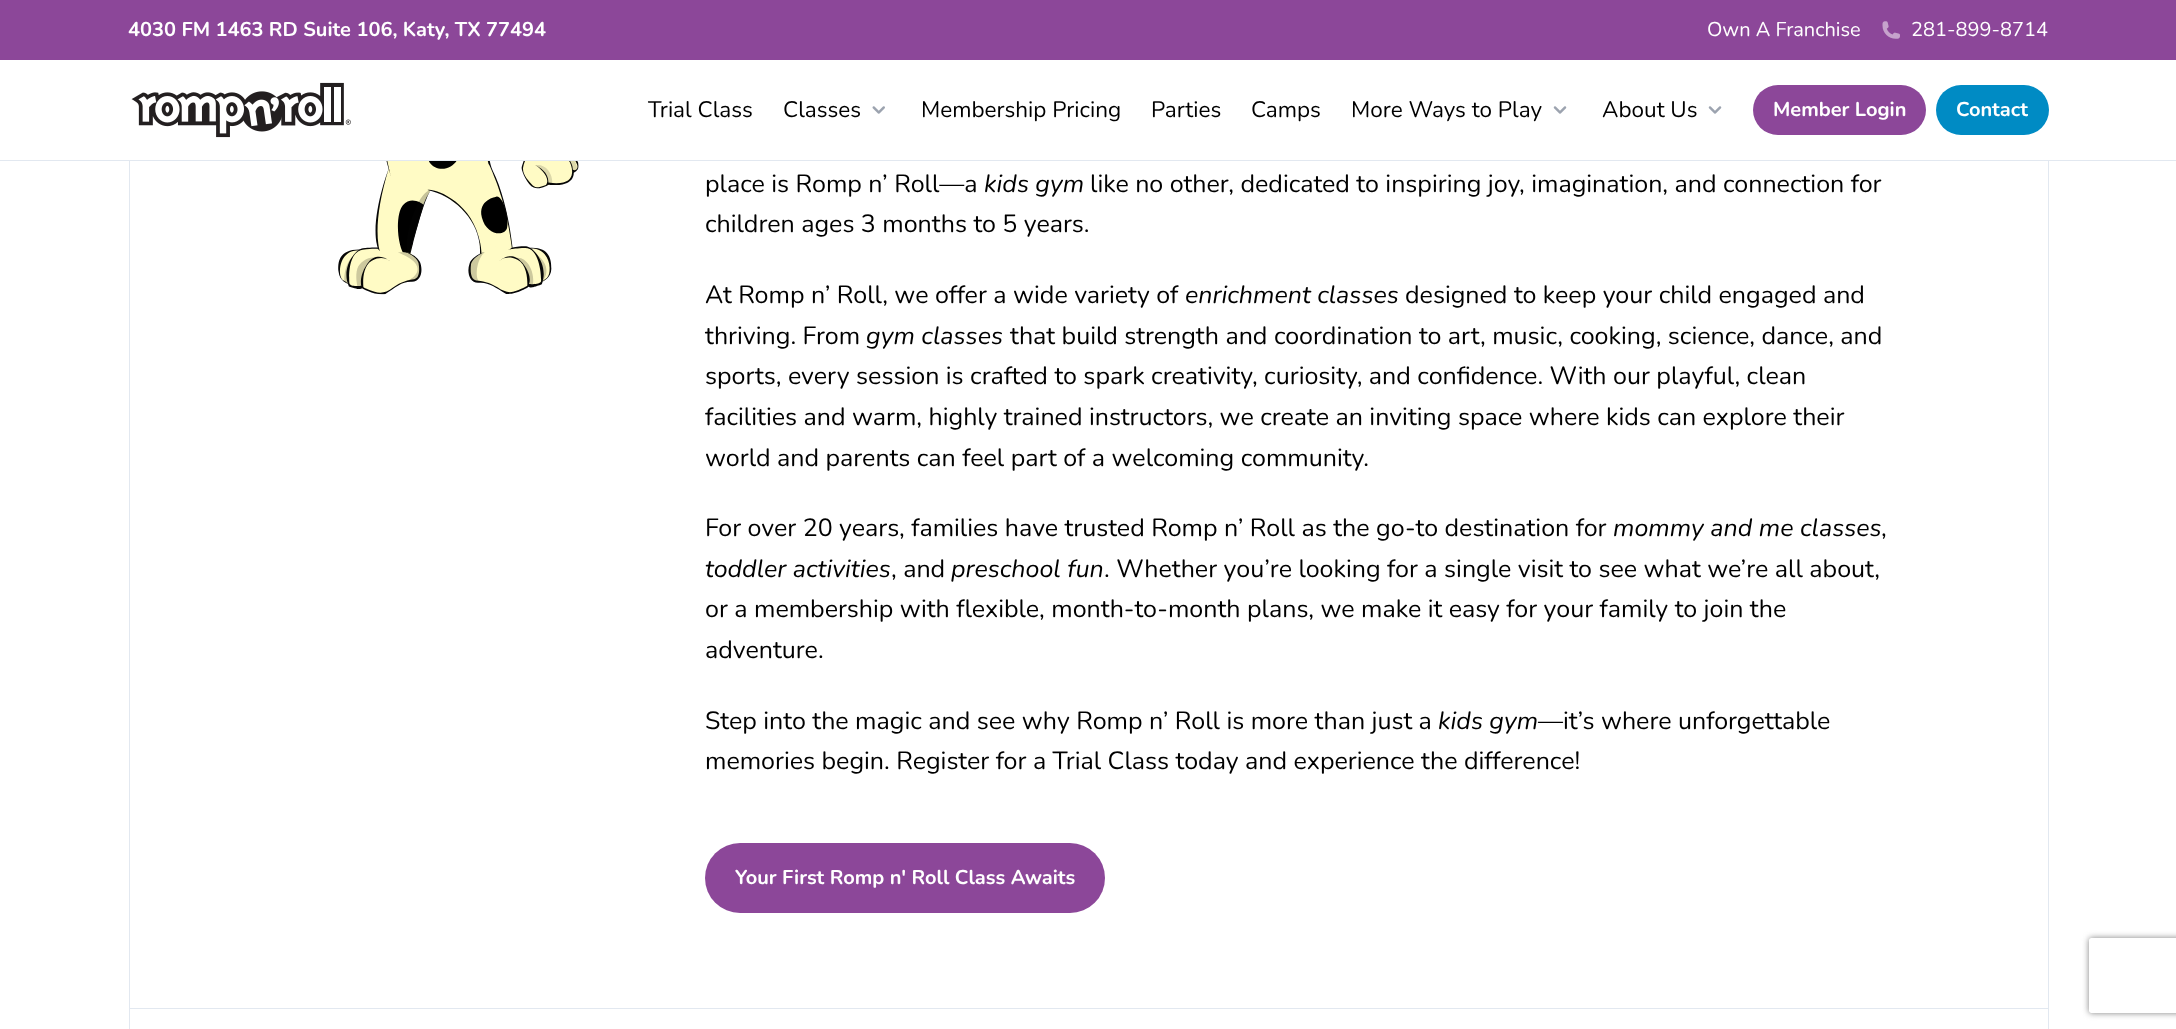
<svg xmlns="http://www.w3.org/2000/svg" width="2176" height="1029">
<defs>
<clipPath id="clip1"><path d="M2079 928h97v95h-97zm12.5 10h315c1.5 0 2.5 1 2.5 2.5v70c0 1.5-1 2.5-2.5 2.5h-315c-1.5 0-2.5-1-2.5-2.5v-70c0-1.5 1-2.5 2.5-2.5z" clip-rule="evenodd"/></clipPath>
</defs>
<rect width="100%" height="100%" fill="#fff"/>
<rect x="129.5" y="-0.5" width="1919" height="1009" fill="none" stroke="#e2e8f0"/>
<rect x="129" y="60" width="1920" height="100" fill="#fff"/>
<rect y="160" width="2176" height="1" fill="#e2e8f0"/>
<rect width="2176" height="60" fill="#8c4799"/>
<text x="128" y="36" style="font-family:Nunito;font-size:20px;font-weight:bold;fill:#fff">4030 FM 1463 RD Suite 106, Katy, TX 77494</text>
<text x="1707" y="36" style="font-family:Nunito;font-size:20px;fill:#fff">Own A Franchise</text>
<image x="1882" y="21" width="18" height="18" href="media/1.png"/>
<text x="1911" y="36" style="font-family:Nunito;font-size:20px;fill:#fff">281-899-8714</text>
<image x="131" y="82" width="220" height="56" href="media/2.png"/>
<text x="648" y="117" style="font-family:Nunito;font-size:22.5px;fill:#000">Trial Class</text>
<text x="783" y="117" style="font-family:Nunito;font-size:22.5px;fill:#000">Classes</text>
<image x="872" y="106" width="13" height="8" href="media/3.png"/>
<text x="921" y="117" style="font-family:Nunito;font-size:22.5px;fill:#000">Membership Pricing</text>
<text x="1151" y="117" style="font-family:Nunito;font-size:22.5px;fill:#000">Parties</text>
<text x="1251" y="117" style="font-family:Nunito;font-size:22.5px;fill:#000">Camps</text>
<text x="1351" y="117" style="font-family:Nunito;font-size:22.5px;fill:#000">More Ways to Play</text>
<image x="1553" y="106" width="14" height="8" href="media/4.png"/>
<text x="1602" y="117" style="font-family:Nunito;font-size:22.5px;fill:#000">About Us</text>
<image x="1708" y="106" width="14" height="8" href="media/4.png"/>
<rect x="1753" y="85" width="173" height="50" rx="25" fill="#8c4799"/>
<text x="1773" y="116" style="font-family:Nunito;font-size:20px;font-weight:bold;fill:#fff">Member Login</text>
<rect x="1936" y="85" width="113" height="50" rx="25" fill="#008bc4"/>
<text x="1956" y="116" style="font-family:Nunito;font-size:20px;font-weight:bold;fill:#fff">Contact</text>
<image x="338" y="161" width="241" height="134" href="media/5.png"/>
<text x="705" y="192" style="font-family:Nunito;font-size:25px;fill:#000">place is Romp n’ Roll—a</text>
<text x="984" y="192" style="font-family:Nunito;font-size:25px;font-style:italic;fill:#000">kids gym</text>
<text x="1090" y="192" style="font-family:Nunito;font-size:25px;fill:#000">like no other, dedicated to inspiring joy, imagination, and connection for</text>
<text x="705" y="232" style="font-family:Nunito;font-size:25px;fill:#000">children ages 3 months to 5 years.</text>
<text x="705" y="303" style="font-family:Nunito;font-size:25px;fill:#000">At Romp n’ Roll, we offer a wide variety of</text>
<text x="1185" y="303" style="font-family:Nunito;font-size:25px;font-style:italic;fill:#000">enrichment classes</text>
<text x="1405" y="303" style="font-family:Nunito;font-size:25px;fill:#000">designed to keep your child engaged and</text>
<text x="705" y="344" style="font-family:Nunito;font-size:25px;fill:#000">thriving. From</text>
<text x="866" y="344" style="font-family:Nunito;font-size:25px;font-style:italic;fill:#000">gym classes</text>
<text x="1010" y="344" style="font-family:Nunito;font-size:25px;fill:#000">that build strength and coordination to art</text>
<text x="1480" y="344" style="font-family:Nunito;font-size:25px;fill:#000">, music, cooking, science, dance, and</text>
<text x="705" y="384" style="font-family:Nunito;font-size:25px;fill:#000">sports, every session is crafted to spark creativity, curiosity, and confidence. With our playful, clean</text>
<text x="705" y="425" style="font-family:Nunito;font-size:25px;fill:#000">facilities and warm, highly trained instructors, we create an inviting space where kids can explore their</text>
<text x="705" y="466" style="font-family:Nunito;font-size:25px;fill:#000">world and parents can feel part of a welcoming community.</text>
<text x="705" y="536" style="font-family:Nunito;font-size:25px;fill:#000">For over 20 years, families have trusted Romp n’ Roll as the go-to destination for</text>
<text x="1613" y="536" style="font-family:Nunito;font-size:25px;font-style:italic;fill:#000">mommy and me classes</text>
<text x="1881" y="536" style="font-family:Nunito;font-size:25px;fill:#000">,</text>
<text x="705" y="577" style="font-family:Nunito;font-size:25px;font-style:italic;fill:#000">toddler activities</text>
<text x="891" y="577" style="font-family:Nunito;font-size:25px;fill:#000">, and</text>
<text x="951" y="577" style="font-family:Nunito;font-size:25px;font-style:italic;fill:#000">preschool fun</text>
<text x="1104" y="577" style="font-family:Nunito;font-size:25px;fill:#000">. Whether you’re looking for a single visit to see what we’re all about,</text>
<text x="705" y="617" style="font-family:Nunito;font-size:25px;fill:#000">or a membership with flexible, month-to-month plans, we make it easy for your family to join the</text>
<text x="705" y="658" style="font-family:Nunito;font-size:25px;fill:#000">adventure.</text>
<text x="705" y="729" style="font-family:Nunito;font-size:25px;fill:#000">Step into the magic and see why Romp n’ Roll is more than just a</text>
<text x="1438" y="729" style="font-family:Nunito;font-size:25px;font-style:italic;fill:#000">kids gym</text>
<text x="1538" y="729" style="font-family:Nunito;font-size:25px;fill:#000">—it’s where unforgettable</text>
<text x="705" y="769" style="font-family:Nunito;font-size:25px;fill:#000">memories begin. Register for a Trial Class today and experience the difference!</text>
<rect x="705" y="843" width="400" height="70" rx="35" fill="#8c4799"/>
<text x="735" y="884" style="font-family:Nunito;font-size:20px;font-weight:bold;fill:#fff">Your First Romp n' Roll Class Awaits</text>
<rect x="129.5" y="1008.5" width="1919" height="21" fill="none" stroke="#e2e8f0"/>
<g clip-path="url(#clip1)">
<rect x="2089" y="938" width="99" height="75" rx="2.5" fill="#808080" filter="blur(3px)"/>
</g>
</svg>
